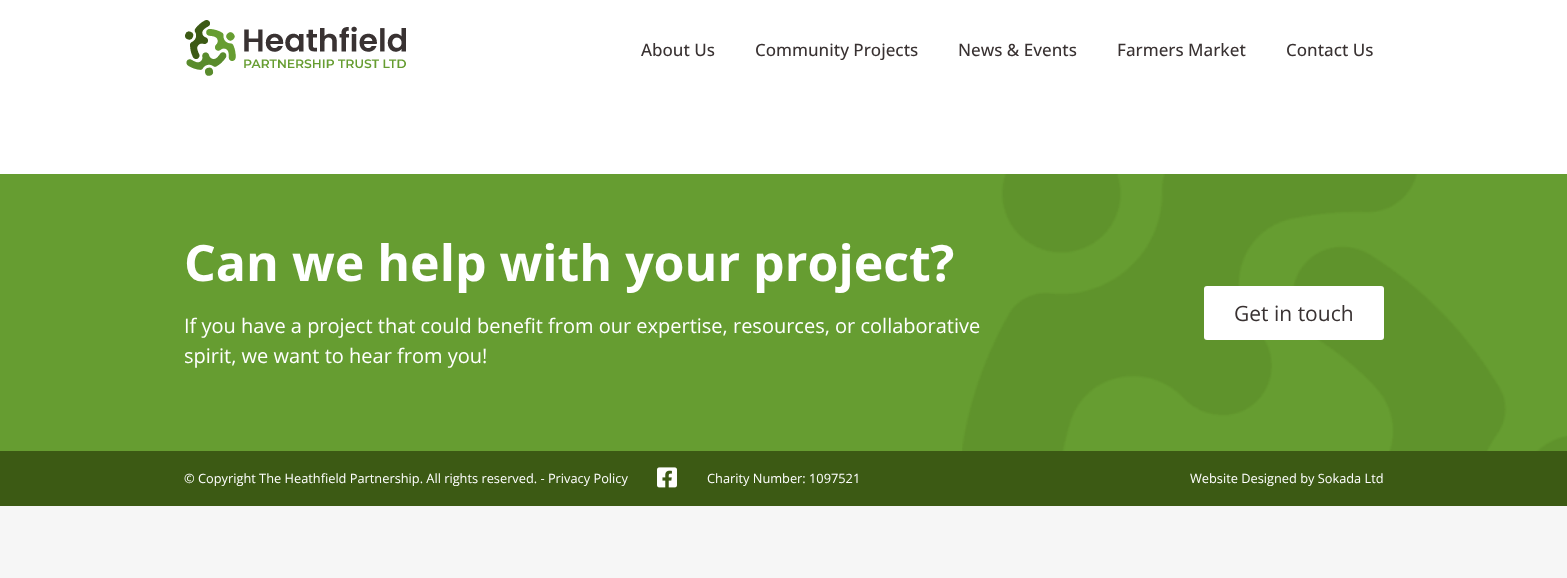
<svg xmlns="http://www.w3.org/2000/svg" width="1567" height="578">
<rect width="100%" height="100%" fill="#f6f6f6"/>
<rect width="1567" height="174" fill="#fff"/>
<image x="185" y="20" width="221" height="56" href="media/1.png"/>
<text x="641" y="56" style="font-family:Open Sans;font-size:17px;font-weight:500;fill:#393232">About Us</text>
<text x="755" y="56" style="font-family:Open Sans;font-size:17px;font-weight:500;fill:#393232">Community Projects</text>
<text x="958" y="56" style="font-family:Open Sans;font-size:17px;font-weight:500;fill:#393232">News &amp; Events</text>
<text x="1117" y="56" style="font-family:Open Sans;font-size:17px;font-weight:500;fill:#393232">Farmers Market</text>
<text x="1286" y="56" style="font-family:Open Sans;font-size:17px;font-weight:500;fill:#393232">Contact Us</text>
<rect y="174" width="1567" height="277" fill="#669d31"/>
<image x="962" y="174" width="605" height="277" href="media/2.png"/>
<text x="184" y="281" style="font-family:Open Sans;font-size:50px;font-weight:bold;fill:#fff">Can we help with your project?</text>
<text x="184" y="333" style="font-family:Open Sans;font-size:20px;fill:#fff">If you have a project that could benefit from our expertise, resources, or collaborative</text>
<text x="184" y="363" style="font-family:Open Sans;font-size:20px;fill:#fff">spirit, we want to hear from you!</text>
<rect x="1204" y="286" width="180" height="54" rx="3" fill="#fff"/>
<text x="1234" y="321" style="font-family:Open Sans;font-size:21px;fill:#393232">Get in touch</text>
<rect y="451" width="1567" height="55" fill="#3c5a14"/>
<text x="184" y="483" style="font-family:Open Sans;font-size:12.8px;fill:#fff">© Copyright The Heathfield Partnership. All rights reserved. - Privacy Policy</text>
<image x="657" y="467" width="20" height="21" href="media/3.png"/>
<text x="707" y="483" style="font-family:Open Sans;font-size:12.8px;fill:#fff">Charity Number: 1097521</text>
<text x="1190" y="483" style="font-family:Open Sans;font-size:12.8px;fill:#fff">Website Designed by Sokada Ltd</text>
</svg>
